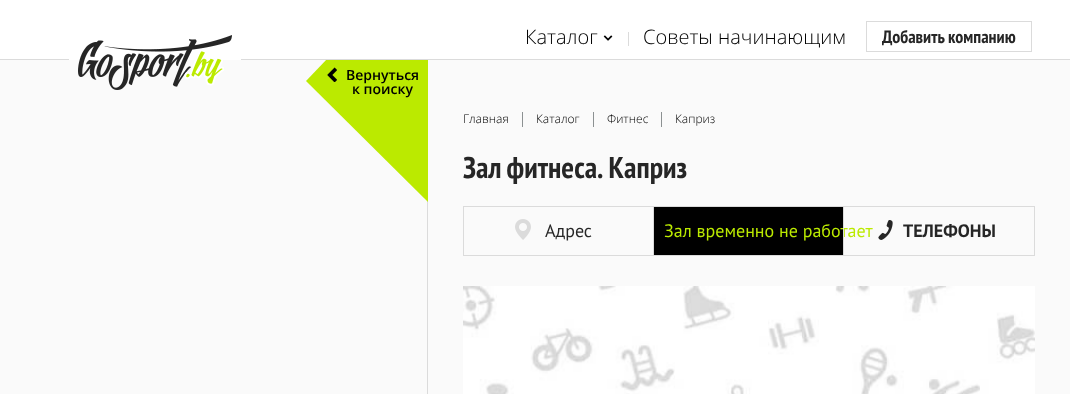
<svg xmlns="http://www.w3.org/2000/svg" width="1070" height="394">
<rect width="100%" height="100%" fill="#fafafa"/>
<rect x="427" y="201" width="1" height="193" fill="#dbdbdb"/>
<path d="M328 58h100v144l-122-121z" fill="#bbea00"/>
<rect width="1070" height="60" fill="#fff"/>
<text x="525" y="44" style="font-family:Open Sans;font-size:20px;font-weight:300;fill:#000">Каталог</text>
<image x="603" y="35" width="10" height="6" href="media/1.png"/>
<rect x="628" y="32" width="1" height="14" fill="#dbdbdb"/>
<text x="643" y="44" style="font-family:Open Sans;font-size:20px;font-weight:300;fill:#000">Советы начинающим</text>
<rect x="866.5" y="21.5" width="165" height="30" fill="none" stroke="#dbdbdb"/>
<text x="882" y="43" style="font-family:PT Sans Narrow;font-size:18px;font-weight:bold;fill:#262626">Добавить компанию</text>
<rect y="59" width="69" height="1" fill="#dbdbdb"/>
<image x="78" y="35" width="154" height="55" href="media/2.png"/>
<rect x="241" y="59" width="829" height="1" fill="#dbdbdb"/>
<image x="327" y="67" width="10" height="15" href="media/3.png"/>
<text x="346" y="80" style="font-family:Open Sans;font-size:14px;font-weight:600;fill:#000">Вернуться</text>
<text x="352" y="94" style="font-family:Open Sans;font-size:14px;font-weight:600;fill:#000">к поиску</text>
<text x="463" y="123" style="font-family:Open Sans;font-size:12px;font-weight:300;fill:#000">Главная</text>
<rect x="522" y="112" width="1" height="15" fill="#8c9192"/>
<text x="536" y="123" style="font-family:Open Sans;font-size:12px;font-weight:300;fill:#000">Каталог</text>
<rect x="593" y="112" width="1" height="15" fill="#8c9192"/>
<text x="607" y="123" style="font-family:Open Sans;font-size:12px;font-weight:300;fill:#000">Фитнес</text>
<rect x="661" y="112" width="1" height="15" fill="#8c9192"/>
<text x="675" y="123" style="font-family:Open Sans;font-size:12px;font-weight:300;fill:#000">Каприз</text>
<text x="463" y="178" word-spacing="-1" style="font-family:PT Sans Narrow;font-size:30px;font-weight:bold;fill:#262626">Зал фитнеса. Каприз</text>
<rect x="463.5" y="206.5" width="190" height="49" fill="none" stroke="#dbdbdb"/>
<image x="515" y="219" width="16" height="21" href="media/4.png"/>
<text x="545" y="237" style="font-family:PT Sans;font-size:18px;fill:#262626">Адрес</text>
<rect x="654" y="207" width="189" height="48" fill="#000"/>
<rect x="654" y="206" width="190" height="1" fill="#dbdbdb"/>
<rect x="654" y="255" width="190" height="1" fill="#dbdbdb"/>
<text x="664" y="237" style="font-family:PT Sans;font-size:18px;fill:#bbea00">Зал временно не работает</text>
<rect x="843.5" y="206.5" width="191" height="49" fill="none" stroke="#dbdbdb"/>
<image x="878" y="220" width="15" height="20" href="media/5.png"/>
<text x="903" y="237" style="font-family:PT Sans;font-size:18px;font-weight:bold;fill:#262626">ТЕЛЕФОНЫ</text>
<image x="463" y="286" width="572" height="108" href="media/6.png"/>
</svg>
